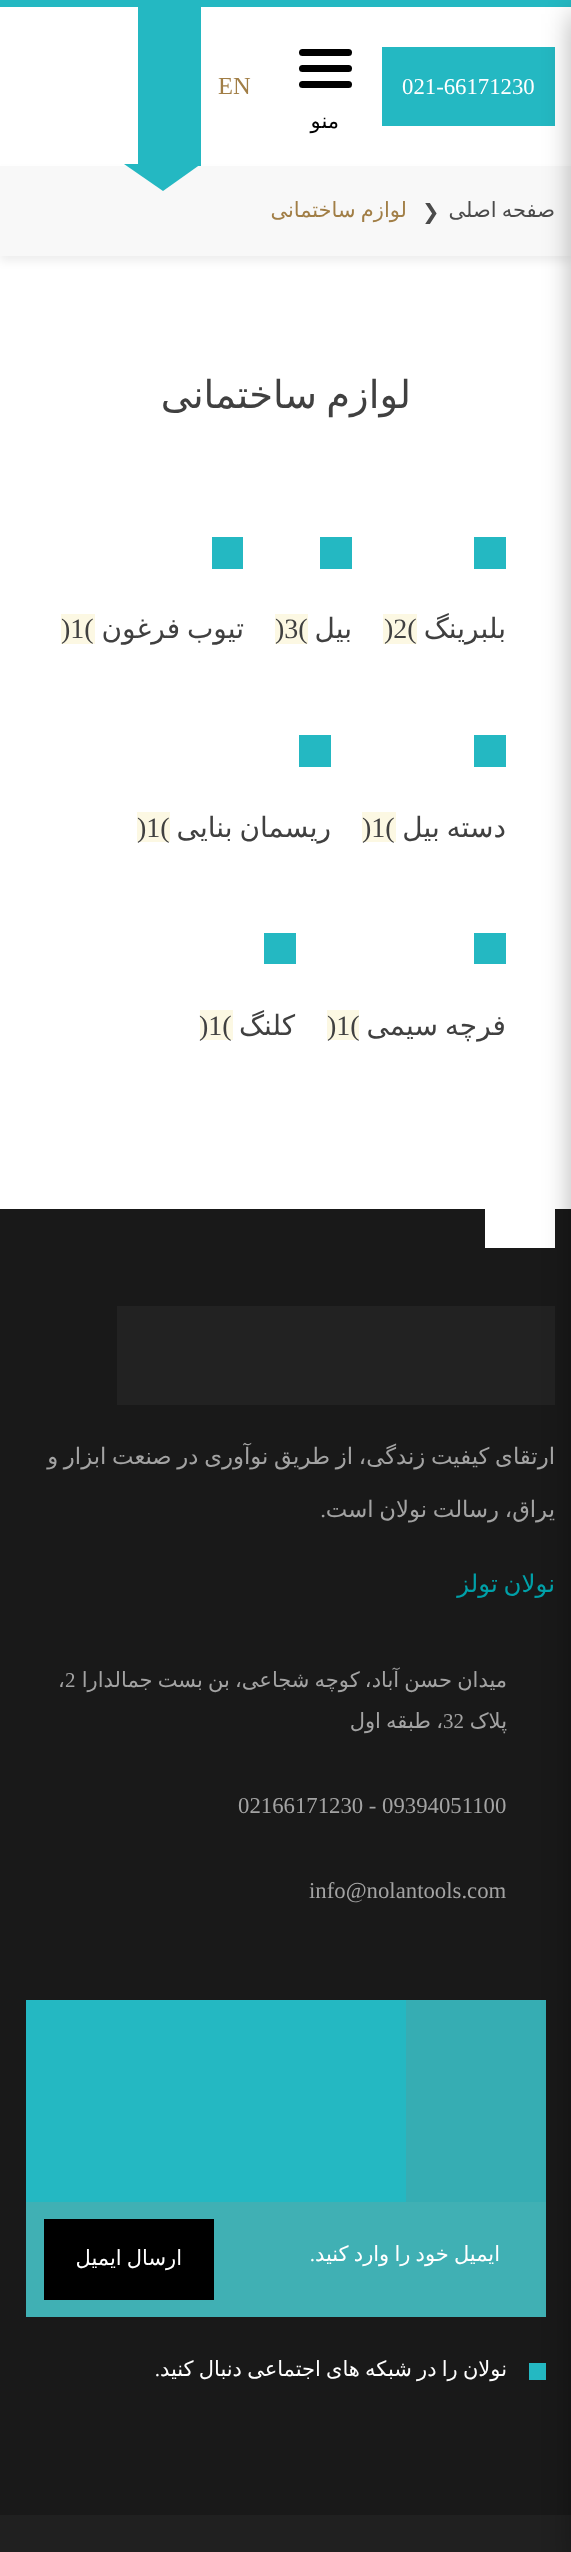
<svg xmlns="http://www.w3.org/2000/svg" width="571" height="2552">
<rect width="100%" height="100%" fill="#fff"/>
<rect width="571" height="7" fill="#24b8c2"/>
<rect x="382" y="47" width="173" height="79" fill="#24b8c2"/>
<rect y="172" width="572" height="89" fill="#00000012" filter="blur(5px)"/>
<rect y="166" width="571" height="90" fill="#f8f8f8"/>
<rect y="1209" width="571" height="1306" fill="#191919"/>
<rect x="485" y="1209" width="70" height="39" fill="#fff"/>
<rect x="117" y="1306" width="438" height="99" fill="#222"/>
<rect x="406" y="2000" width="140" height="202" fill="#36adb3"/>
<rect x="26" y="2202" width="520" height="115" fill="#40b0b4"/>
<rect x="529" y="2363" width="17" height="17" fill="#24b8c2"/>
<rect y="2515" width="571" height="37" fill="#202020"/>
<rect x="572" y="14" width="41" height="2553" fill="#0000004d" filter="blur(14px)"/>
<text x="402" y="94" style="font-family:Liberation Serif;font-size:22.75px;fill:#fff">021-66171230</text>
<text x="218" y="94" style="font-family:Liberation Serif;font-size:24.5px;fill:#a17e46">EN</text>
<rect x="138" y="7" width="63" height="159" fill="#24b8c2"/>
<path d="M124 164h77l-38 27z" fill="#24b8c2"/>
<rect x="299" y="49" width="53" height="7" rx="3.5" fill="#000"/>
<rect x="299" y="65" width="53" height="7" rx="3.5" fill="#000"/>
<rect x="299" y="81" width="53" height="7" rx="3.5" fill="#000"/>
<text x="339" y="128" style="font-family:DejaVu Sans;font-size:21px;direction:rtl;fill:#000">منو</text>
<text x="555" y="217" word-spacing="-1.5" style="font-family:DejaVu Sans;font-size:21px;direction:rtl;fill:#4b4b4b">صفحه اصلی</text>
<text x="422" y="219" style="font-family:DejaVu Sans;font-size:21px;fill:#4b4b4b">❯</text>
<text x="407" y="217" word-spacing="-1.5" style="font-family:DejaVu Sans;font-size:21px;direction:rtl;fill:#a17e46">لوازم ساختمانی</text>
<text x="411" y="408" word-spacing="-3" style="font-family:DejaVu Sans;font-size:38.5px;direction:rtl;fill:#404040">لوازم ساختمانی</text>
<rect x="474" y="537" width="32" height="32" fill="#24b8c2"/>
<text x="506" y="638" style="font-family:DejaVu Sans;font-size:28px;direction:rtl;fill:#404040">بلبرينگ</text>
<rect x="383" y="614" width="34" height="30" fill="#fcf8e3"/>
<text x="384" y="638" style="font-family:Liberation Serif;font-size:28px;fill:#404040">)2(</text>
<rect x="320" y="537" width="32" height="32" fill="#24b8c2"/>
<text x="352" y="638" style="font-family:DejaVu Sans;font-size:28px;direction:rtl;fill:#404040">بیل</text>
<rect x="275" y="614" width="33" height="30" fill="#fcf8e3"/>
<text x="275" y="638" style="font-family:Liberation Serif;font-size:28px;fill:#404040">)3(</text>
<rect x="212" y="537" width="31" height="32" fill="#24b8c2"/>
<text x="244" y="638" word-spacing="-2" style="font-family:DejaVu Sans;font-size:28px;direction:rtl;fill:#404040">تیوب فرغون</text>
<rect x="61" y="614" width="34" height="30" fill="#fcf8e3"/>
<text x="61" y="638" style="font-family:Liberation Serif;font-size:28px;fill:#404040">)1(</text>
<rect x="474" y="735" width="32" height="32" fill="#24b8c2"/>
<text x="506" y="837" word-spacing="-2" style="font-family:DejaVu Sans;font-size:28px;direction:rtl;fill:#404040">دسته بیل</text>
<rect x="362" y="812" width="34" height="30" fill="#fcf8e3"/>
<text x="362" y="837" style="font-family:Liberation Serif;font-size:28px;fill:#404040">)1(</text>
<rect x="299" y="735" width="32" height="32" fill="#24b8c2"/>
<text x="331" y="837" word-spacing="-2" style="font-family:DejaVu Sans;font-size:28px;direction:rtl;fill:#404040">ریسمان بنایی</text>
<rect x="137" y="812" width="33" height="30" fill="#fcf8e3"/>
<text x="137" y="837" style="font-family:Liberation Serif;font-size:28px;fill:#404040">)1(</text>
<rect x="474" y="933" width="32" height="31" fill="#24b8c2"/>
<text x="506" y="1035" word-spacing="-2" style="font-family:DejaVu Sans;font-size:28px;direction:rtl;fill:#404040">فرچه سیمی</text>
<rect x="327" y="1010" width="32" height="30" fill="#fcf8e3"/>
<text x="327" y="1035" style="font-family:Liberation Serif;font-size:28px;fill:#404040">)1(</text>
<rect x="264" y="933" width="32" height="31" fill="#24b8c2"/>
<text x="295" y="1035" style="font-family:DejaVu Sans;font-size:28px;direction:rtl;fill:#404040">کلنگ</text>
<rect x="200" y="1010" width="33" height="30" fill="#fcf8e3"/>
<text x="199" y="1035" style="font-family:Liberation Serif;font-size:28px;fill:#404040">)1(</text>
<text x="555" y="1464" word-spacing="-1.5" style="font-family:DejaVu Sans;font-size:22.75px;direction:rtl;fill:#a3a3a3">ارتقای کیفیت زندگی، از طریق نوآوری در صنعت ابزار و</text>
<text x="555" y="1517" word-spacing="-1.5" style="font-family:DejaVu Sans;font-size:22.75px;direction:rtl;fill:#a3a3a3">یراق، رسالت نولان است</text>
<text x="326" y="1517" style="font-family:Liberation Serif;font-size:22.75px;direction:rtl;fill:#a3a3a3">.</text>
<text x="555" y="1592" word-spacing="-2" style="font-family:DejaVu Sans;font-size:24.5px;direction:rtl;fill:#00a0a8">نولان تولز</text>
<text x="507" y="1687" word-spacing="-1.5" style="font-family:DejaVu Sans;font-size:21px;direction:rtl;fill:#a3a3a3">میدان حسن آباد، کوچه شجاعی، بن بست جمالدارا</text>
<text x="65" y="1687" style="font-family:Liberation Serif;font-size:21px;fill:#a3a3a3">2</text>
<text x="58" y="1687" style="font-family:DejaVu Sans;font-size:21px;fill:#a3a3a3">،</text>
<text x="507" y="1728" style="font-family:DejaVu Sans;font-size:21px;direction:rtl;fill:#a3a3a3">پلاک</text>
<text x="443" y="1728" style="font-family:Liberation Serif;font-size:21px;fill:#a3a3a3">32</text>
<text x="443" y="1728" word-spacing="-1.5" style="font-family:DejaVu Sans;font-size:21px;direction:rtl;fill:#a3a3a3">، طبقه اول</text>
<text x="238" y="1813" style="font-family:Liberation Serif;font-size:22.75px;fill:#a3a3a3">02166171230 - 09394051100</text>
<text x="309" y="1898" style="font-family:Liberation Serif;font-size:22.75px;fill:#a3a3a3">info@nolantools.com</text>
<rect x="26" y="2000" width="380" height="202" fill="#24b8c2"/>
<text x="500" y="2261" word-spacing="-1.5" style="font-family:DejaVu Sans;font-size:21px;direction:rtl;fill:#fff">ایمیل خود را وارد کنید</text>
<text x="315" y="2261" style="font-family:Liberation Serif;font-size:21px;direction:rtl;fill:#fff">.</text>
<rect x="44" y="2219" width="170" height="81" fill="#000"/>
<text x="182" y="2265" word-spacing="-1.5" style="font-family:DejaVu Sans;font-size:21px;direction:rtl;fill:#fff">ارسال ایمیل</text>
<text x="507" y="2376" word-spacing="-1.5" style="font-family:DejaVu Sans;font-size:21px;direction:rtl;fill:#fff">نولان را در شبکه های اجتماعی دنبال کنید</text>
<text x="160" y="2376" style="font-family:Liberation Serif;font-size:21px;direction:rtl;fill:#fff">.</text>
</svg>
